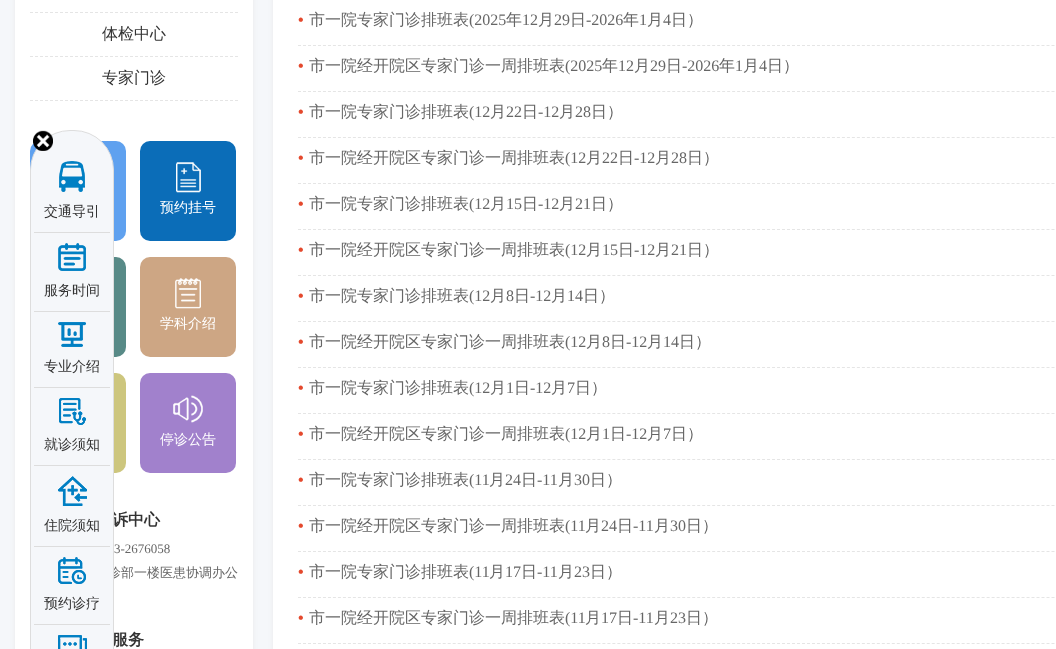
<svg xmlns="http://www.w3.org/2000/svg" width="1056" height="649">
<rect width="100%" height="100%" fill="#f5f7fa"/>
<rect x="15" y="-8" width="238" height="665" fill="#e6e6e6b3" filter="blur(2.5px)"/>
<rect x="15" width="238" height="649" fill="#fff"/>
<rect x="30" y="141" width="96" height="100" rx="10" fill="#5fa1ef"/>
<rect x="30" y="257" width="96" height="100" rx="10" fill="#588a87"/>
<rect x="30" y="373" width="96" height="100" rx="10" fill="#cdc67e"/>
<text x="112" y="525" style="font-family:WenQuanYi Zen Hei;font-size:16px;font-weight:bold;fill:#333">诉中心</text>
<text x="108" y="577" style="font-family:WenQuanYi Zen Hei;font-size:13px;font-weight:500;fill:#666">诊部一楼医患协调办公</text>
<text x="112" y="645" style="font-family:WenQuanYi Zen Hei;font-size:16px;font-weight:bold;fill:#333">服务</text>
<rect x="30.5" y="130.5" width="83" height="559" rx="39.5" fill="#f5f7fa" stroke="#ddd"/>
<image x="33" y="130" width="20" height="21" href="media/1.png"/>
<rect x="34" y="232" width="76" height="1" fill="#ddd"/>
<image x="59" y="161" width="26" height="31" href="media/2.png"/>
<text x="44" y="216" style="font-family:WenQuanYi Zen Hei;font-size:14px;font-weight:500;fill:#333">交通导引</text>
<rect x="34" y="311" width="76" height="1" fill="#ddd"/>
<image x="58" y="243" width="28" height="28" href="media/3.png"/>
<text x="44" y="295" style="font-family:WenQuanYi Zen Hei;font-size:14px;font-weight:500;fill:#333">服务时间</text>
<rect x="34" y="387" width="76" height="1" fill="#ddd"/>
<image x="58" y="322" width="28" height="25" href="media/4.png"/>
<text x="44" y="371" style="font-family:WenQuanYi Zen Hei;font-size:14px;font-weight:500;fill:#333">专业介绍</text>
<rect x="34" y="465" width="76" height="1" fill="#ddd"/>
<image x="59" y="398" width="27" height="27" href="media/5.png"/>
<text x="44" y="449" style="font-family:WenQuanYi Zen Hei;font-size:14px;font-weight:500;fill:#333">就诊须知</text>
<rect x="34" y="546" width="76" height="1" fill="#ddd"/>
<image x="58" y="476" width="29" height="30" href="media/6.png"/>
<text x="44" y="530" style="font-family:WenQuanYi Zen Hei;font-size:14px;font-weight:500;fill:#333">住院须知</text>
<rect x="34" y="624" width="76" height="1" fill="#ddd"/>
<image x="58" y="557" width="28" height="27" href="media/7.png"/>
<text x="44" y="608" style="font-family:WenQuanYi Zen Hei;font-size:14px;font-weight:500;fill:#333">预约诊疗</text>
<image x="58" y="635" width="29" height="14" href="media/8.png"/>
<path d="M30 12.5h208" fill="none" stroke="#e5e5e5" stroke-dasharray="3 2"/>
<path d="M30 56.5h208" fill="none" stroke="#e5e5e5" stroke-dasharray="3 2"/>
<text x="102" y="39" style="font-family:WenQuanYi Zen Hei;font-size:16px;font-weight:500;fill:#333">体检中心</text>
<path d="M30 100.5h208" fill="none" stroke="#e5e5e5" stroke-dasharray="3 2"/>
<text x="102" y="83" style="font-family:WenQuanYi Zen Hei;font-size:16px;font-weight:500;fill:#333">专家门诊</text>
<rect x="140" y="141" width="96" height="100" rx="10" fill="#0b6db8"/>
<image x="176" y="162" width="25" height="31" href="media/9.png"/>
<text x="160" y="212" style="font-family:WenQuanYi Zen Hei;font-size:14px;font-weight:500;fill:#fff">预约挂号</text>
<rect x="140" y="257" width="96" height="100" rx="10" fill="#cda684"/>
<image x="175" y="278" width="26" height="31" href="media/10.png"/>
<text x="160" y="328" style="font-family:WenQuanYi Zen Hei;font-size:14px;font-weight:500;fill:#fff">学科介绍</text>
<rect x="140" y="373" width="96" height="100" rx="10" fill="#a181cc"/>
<image x="173" y="395" width="30" height="28" href="media/11.png"/>
<text x="160" y="444" style="font-family:WenQuanYi Zen Hei;font-size:14px;font-weight:500;fill:#fff">停诊公告</text>
<text x="114" y="553" style="font-family:Liberation Serif;font-size:13px;fill:#666">3-2676058</text>
<rect x="273" y="-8" width="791" height="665" fill="#e6e6e6b3" filter="blur(2.5px)"/>
<rect x="273" width="783" height="649" fill="#fff"/>
<path d="M298 45.5h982" fill="none" stroke="#e5e5e5" stroke-dasharray="3 1.99"/>
<text x="298" y="25" style="font-family:Liberation Serif;font-size:16px;font-weight:bold;fill:#e4492d">•</text>
<text x="309" y="25" style="font-family:WenQuanYi Zen Hei;font-size:16px;font-weight:500;fill:#666">市一院专家门诊排班表</text>
<text x="469" y="25" style="font-family:Liberation Serif;font-size:16px;fill:#666">(2025</text>
<text x="506" y="25" style="font-family:WenQuanYi Zen Hei;font-size:16px;font-weight:500;fill:#666">年</text>
<text x="522" y="25" style="font-family:Liberation Serif;font-size:16px;fill:#666">12</text>
<text x="538" y="25" style="font-family:WenQuanYi Zen Hei;font-size:16px;font-weight:500;fill:#666">月</text>
<text x="554" y="25" style="font-family:Liberation Serif;font-size:16px;fill:#666">29</text>
<text x="570" y="25" style="font-family:WenQuanYi Zen Hei;font-size:16px;font-weight:500;fill:#666">日</text>
<text x="586" y="25" style="font-family:Liberation Serif;font-size:16px;fill:#666">-2026</text>
<text x="623" y="25" style="font-family:WenQuanYi Zen Hei;font-size:16px;font-weight:500;fill:#666">年</text>
<text x="639" y="25" style="font-family:Liberation Serif;font-size:16px;fill:#666">1</text>
<text x="647" y="25" style="font-family:WenQuanYi Zen Hei;font-size:16px;font-weight:500;fill:#666">月</text>
<text x="663" y="25" style="font-family:Liberation Serif;font-size:16px;fill:#666">4</text>
<text x="671" y="25" style="font-family:WenQuanYi Zen Hei;font-size:16px;font-weight:500;fill:#666">日）</text>
<path d="M298 91.5h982" fill="none" stroke="#e5e5e5" stroke-dasharray="3 1.99"/>
<text x="298" y="71" style="font-family:Liberation Serif;font-size:16px;font-weight:bold;fill:#e4492d">•</text>
<text x="309" y="71" style="font-family:WenQuanYi Zen Hei;font-size:16px;font-weight:500;fill:#666">市一院经开院区专家门诊一周排班表</text>
<text x="565" y="71" style="font-family:Liberation Serif;font-size:16px;fill:#666">(2025</text>
<text x="602" y="71" style="font-family:WenQuanYi Zen Hei;font-size:16px;font-weight:500;fill:#666">年</text>
<text x="618" y="71" style="font-family:Liberation Serif;font-size:16px;fill:#666">12</text>
<text x="634" y="71" style="font-family:WenQuanYi Zen Hei;font-size:16px;font-weight:500;fill:#666">月</text>
<text x="650" y="71" style="font-family:Liberation Serif;font-size:16px;fill:#666">29</text>
<text x="666" y="71" style="font-family:WenQuanYi Zen Hei;font-size:16px;font-weight:500;fill:#666">日</text>
<text x="682" y="71" style="font-family:Liberation Serif;font-size:16px;fill:#666">-2026</text>
<text x="719" y="71" style="font-family:WenQuanYi Zen Hei;font-size:16px;font-weight:500;fill:#666">年</text>
<text x="735" y="71" style="font-family:Liberation Serif;font-size:16px;fill:#666">1</text>
<text x="743" y="71" style="font-family:WenQuanYi Zen Hei;font-size:16px;font-weight:500;fill:#666">月</text>
<text x="759" y="71" style="font-family:Liberation Serif;font-size:16px;fill:#666">4</text>
<text x="767" y="71" style="font-family:WenQuanYi Zen Hei;font-size:16px;font-weight:500;fill:#666">日）</text>
<path d="M298 137.5h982" fill="none" stroke="#e5e5e5" stroke-dasharray="3 1.99"/>
<text x="298" y="117" style="font-family:Liberation Serif;font-size:16px;font-weight:bold;fill:#e4492d">•</text>
<text x="309" y="117" style="font-family:WenQuanYi Zen Hei;font-size:16px;font-weight:500;fill:#666">市一院专家门诊排班表</text>
<text x="469" y="117" style="font-family:Liberation Serif;font-size:16px;fill:#666">(12</text>
<text x="490" y="117" style="font-family:WenQuanYi Zen Hei;font-size:16px;font-weight:500;fill:#666">月</text>
<text x="506" y="117" style="font-family:Liberation Serif;font-size:16px;fill:#666">22</text>
<text x="522" y="117" style="font-family:WenQuanYi Zen Hei;font-size:16px;font-weight:500;fill:#666">日</text>
<text x="538" y="117" style="font-family:Liberation Serif;font-size:16px;fill:#666">-12</text>
<text x="559" y="117" style="font-family:WenQuanYi Zen Hei;font-size:16px;font-weight:500;fill:#666">月</text>
<text x="575" y="117" style="font-family:Liberation Serif;font-size:16px;fill:#666">28</text>
<text x="591" y="117" style="font-family:WenQuanYi Zen Hei;font-size:16px;font-weight:500;fill:#666">日）</text>
<path d="M298 183.5h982" fill="none" stroke="#e5e5e5" stroke-dasharray="3 1.99"/>
<text x="298" y="163" style="font-family:Liberation Serif;font-size:16px;font-weight:bold;fill:#e4492d">•</text>
<text x="309" y="163" style="font-family:WenQuanYi Zen Hei;font-size:16px;font-weight:500;fill:#666">市一院经开院区专家门诊一周排班表</text>
<text x="565" y="163" style="font-family:Liberation Serif;font-size:16px;fill:#666">(12</text>
<text x="586" y="163" style="font-family:WenQuanYi Zen Hei;font-size:16px;font-weight:500;fill:#666">月</text>
<text x="602" y="163" style="font-family:Liberation Serif;font-size:16px;fill:#666">22</text>
<text x="618" y="163" style="font-family:WenQuanYi Zen Hei;font-size:16px;font-weight:500;fill:#666">日</text>
<text x="634" y="163" style="font-family:Liberation Serif;font-size:16px;fill:#666">-12</text>
<text x="655" y="163" style="font-family:WenQuanYi Zen Hei;font-size:16px;font-weight:500;fill:#666">月</text>
<text x="671" y="163" style="font-family:Liberation Serif;font-size:16px;fill:#666">28</text>
<text x="687" y="163" style="font-family:WenQuanYi Zen Hei;font-size:16px;font-weight:500;fill:#666">日）</text>
<path d="M298 229.5h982" fill="none" stroke="#e5e5e5" stroke-dasharray="3 1.99"/>
<text x="298" y="209" style="font-family:Liberation Serif;font-size:16px;font-weight:bold;fill:#e4492d">•</text>
<text x="309" y="209" style="font-family:WenQuanYi Zen Hei;font-size:16px;font-weight:500;fill:#666">市一院专家门诊排班表</text>
<text x="469" y="209" style="font-family:Liberation Serif;font-size:16px;fill:#666">(12</text>
<text x="490" y="209" style="font-family:WenQuanYi Zen Hei;font-size:16px;font-weight:500;fill:#666">月</text>
<text x="506" y="209" style="font-family:Liberation Serif;font-size:16px;fill:#666">15</text>
<text x="522" y="209" style="font-family:WenQuanYi Zen Hei;font-size:16px;font-weight:500;fill:#666">日</text>
<text x="538" y="209" style="font-family:Liberation Serif;font-size:16px;fill:#666">-12</text>
<text x="559" y="209" style="font-family:WenQuanYi Zen Hei;font-size:16px;font-weight:500;fill:#666">月</text>
<text x="575" y="209" style="font-family:Liberation Serif;font-size:16px;fill:#666">21</text>
<text x="591" y="209" style="font-family:WenQuanYi Zen Hei;font-size:16px;font-weight:500;fill:#666">日）</text>
<path d="M298 275.5h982" fill="none" stroke="#e5e5e5" stroke-dasharray="3 1.99"/>
<text x="298" y="255" style="font-family:Liberation Serif;font-size:16px;font-weight:bold;fill:#e4492d">•</text>
<text x="309" y="255" style="font-family:WenQuanYi Zen Hei;font-size:16px;font-weight:500;fill:#666">市一院经开院区专家门诊一周排班表</text>
<text x="565" y="255" style="font-family:Liberation Serif;font-size:16px;fill:#666">(12</text>
<text x="586" y="255" style="font-family:WenQuanYi Zen Hei;font-size:16px;font-weight:500;fill:#666">月</text>
<text x="602" y="255" style="font-family:Liberation Serif;font-size:16px;fill:#666">15</text>
<text x="618" y="255" style="font-family:WenQuanYi Zen Hei;font-size:16px;font-weight:500;fill:#666">日</text>
<text x="634" y="255" style="font-family:Liberation Serif;font-size:16px;fill:#666">-12</text>
<text x="655" y="255" style="font-family:WenQuanYi Zen Hei;font-size:16px;font-weight:500;fill:#666">月</text>
<text x="671" y="255" style="font-family:Liberation Serif;font-size:16px;fill:#666">21</text>
<text x="687" y="255" style="font-family:WenQuanYi Zen Hei;font-size:16px;font-weight:500;fill:#666">日）</text>
<path d="M298 321.5h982" fill="none" stroke="#e5e5e5" stroke-dasharray="3 1.99"/>
<text x="298" y="301" style="font-family:Liberation Serif;font-size:16px;font-weight:bold;fill:#e4492d">•</text>
<text x="309" y="301" style="font-family:WenQuanYi Zen Hei;font-size:16px;font-weight:500;fill:#666">市一院专家门诊排班表</text>
<text x="469" y="301" style="font-family:Liberation Serif;font-size:16px;fill:#666">(12</text>
<text x="490" y="301" style="font-family:WenQuanYi Zen Hei;font-size:16px;font-weight:500;fill:#666">月</text>
<text x="506" y="301" style="font-family:Liberation Serif;font-size:16px;fill:#666">8</text>
<text x="514" y="301" style="font-family:WenQuanYi Zen Hei;font-size:16px;font-weight:500;fill:#666">日</text>
<text x="530" y="301" style="font-family:Liberation Serif;font-size:16px;fill:#666">-12</text>
<text x="551" y="301" style="font-family:WenQuanYi Zen Hei;font-size:16px;font-weight:500;fill:#666">月</text>
<text x="567" y="301" style="font-family:Liberation Serif;font-size:16px;fill:#666">14</text>
<text x="583" y="301" style="font-family:WenQuanYi Zen Hei;font-size:16px;font-weight:500;fill:#666">日）</text>
<path d="M298 367.5h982" fill="none" stroke="#e5e5e5" stroke-dasharray="3 1.99"/>
<text x="298" y="347" style="font-family:Liberation Serif;font-size:16px;font-weight:bold;fill:#e4492d">•</text>
<text x="309" y="347" style="font-family:WenQuanYi Zen Hei;font-size:16px;font-weight:500;fill:#666">市一院经开院区专家门诊一周排班表</text>
<text x="565" y="347" style="font-family:Liberation Serif;font-size:16px;fill:#666">(12</text>
<text x="586" y="347" style="font-family:WenQuanYi Zen Hei;font-size:16px;font-weight:500;fill:#666">月</text>
<text x="602" y="347" style="font-family:Liberation Serif;font-size:16px;fill:#666">8</text>
<text x="610" y="347" style="font-family:WenQuanYi Zen Hei;font-size:16px;font-weight:500;fill:#666">日</text>
<text x="626" y="347" style="font-family:Liberation Serif;font-size:16px;fill:#666">-12</text>
<text x="647" y="347" style="font-family:WenQuanYi Zen Hei;font-size:16px;font-weight:500;fill:#666">月</text>
<text x="663" y="347" style="font-family:Liberation Serif;font-size:16px;fill:#666">14</text>
<text x="679" y="347" style="font-family:WenQuanYi Zen Hei;font-size:16px;font-weight:500;fill:#666">日）</text>
<path d="M298 413.5h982" fill="none" stroke="#e5e5e5" stroke-dasharray="3 1.99"/>
<text x="298" y="393" style="font-family:Liberation Serif;font-size:16px;font-weight:bold;fill:#e4492d">•</text>
<text x="309" y="393" style="font-family:WenQuanYi Zen Hei;font-size:16px;font-weight:500;fill:#666">市一院专家门诊排班表</text>
<text x="469" y="393" style="font-family:Liberation Serif;font-size:16px;fill:#666">(12</text>
<text x="490" y="393" style="font-family:WenQuanYi Zen Hei;font-size:16px;font-weight:500;fill:#666">月</text>
<text x="506" y="393" style="font-family:Liberation Serif;font-size:16px;fill:#666">1</text>
<text x="514" y="393" style="font-family:WenQuanYi Zen Hei;font-size:16px;font-weight:500;fill:#666">日</text>
<text x="530" y="393" style="font-family:Liberation Serif;font-size:16px;fill:#666">-12</text>
<text x="551" y="393" style="font-family:WenQuanYi Zen Hei;font-size:16px;font-weight:500;fill:#666">月</text>
<text x="567" y="393" style="font-family:Liberation Serif;font-size:16px;fill:#666">7</text>
<text x="575" y="393" style="font-family:WenQuanYi Zen Hei;font-size:16px;font-weight:500;fill:#666">日）</text>
<path d="M298 459.5h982" fill="none" stroke="#e5e5e5" stroke-dasharray="3 1.99"/>
<text x="298" y="439" style="font-family:Liberation Serif;font-size:16px;font-weight:bold;fill:#e4492d">•</text>
<text x="309" y="439" style="font-family:WenQuanYi Zen Hei;font-size:16px;font-weight:500;fill:#666">市一院经开院区专家门诊一周排班表</text>
<text x="565" y="439" style="font-family:Liberation Serif;font-size:16px;fill:#666">(12</text>
<text x="586" y="439" style="font-family:WenQuanYi Zen Hei;font-size:16px;font-weight:500;fill:#666">月</text>
<text x="602" y="439" style="font-family:Liberation Serif;font-size:16px;fill:#666">1</text>
<text x="610" y="439" style="font-family:WenQuanYi Zen Hei;font-size:16px;font-weight:500;fill:#666">日</text>
<text x="626" y="439" style="font-family:Liberation Serif;font-size:16px;fill:#666">-12</text>
<text x="647" y="439" style="font-family:WenQuanYi Zen Hei;font-size:16px;font-weight:500;fill:#666">月</text>
<text x="663" y="439" style="font-family:Liberation Serif;font-size:16px;fill:#666">7</text>
<text x="671" y="439" style="font-family:WenQuanYi Zen Hei;font-size:16px;font-weight:500;fill:#666">日）</text>
<path d="M298 505.5h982" fill="none" stroke="#e5e5e5" stroke-dasharray="3 1.99"/>
<text x="298" y="485" style="font-family:Liberation Serif;font-size:16px;font-weight:bold;fill:#e4492d">•</text>
<text x="309" y="485" style="font-family:WenQuanYi Zen Hei;font-size:16px;font-weight:500;fill:#666">市一院专家门诊排班表</text>
<text x="469" y="485" style="font-family:Liberation Serif;font-size:16px;fill:#666">(11</text>
<text x="489" y="485" style="font-family:WenQuanYi Zen Hei;font-size:16px;font-weight:500;fill:#666">月</text>
<text x="505" y="485" style="font-family:Liberation Serif;font-size:16px;fill:#666">24</text>
<text x="521" y="485" style="font-family:WenQuanYi Zen Hei;font-size:16px;font-weight:500;fill:#666">日</text>
<text x="537" y="485" style="font-family:Liberation Serif;font-size:16px;fill:#666">-11</text>
<text x="558" y="485" style="font-family:WenQuanYi Zen Hei;font-size:16px;font-weight:500;fill:#666">月</text>
<text x="574" y="485" style="font-family:Liberation Serif;font-size:16px;fill:#666">30</text>
<text x="590" y="485" style="font-family:WenQuanYi Zen Hei;font-size:16px;font-weight:500;fill:#666">日）</text>
<path d="M298 551.5h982" fill="none" stroke="#e5e5e5" stroke-dasharray="3 1.99"/>
<text x="298" y="531" style="font-family:Liberation Serif;font-size:16px;font-weight:bold;fill:#e4492d">•</text>
<text x="309" y="531" style="font-family:WenQuanYi Zen Hei;font-size:16px;font-weight:500;fill:#666">市一院经开院区专家门诊一周排班表</text>
<text x="565" y="531" style="font-family:Liberation Serif;font-size:16px;fill:#666">(11</text>
<text x="585" y="531" style="font-family:WenQuanYi Zen Hei;font-size:16px;font-weight:500;fill:#666">月</text>
<text x="601" y="531" style="font-family:Liberation Serif;font-size:16px;fill:#666">24</text>
<text x="617" y="531" style="font-family:WenQuanYi Zen Hei;font-size:16px;font-weight:500;fill:#666">日</text>
<text x="633" y="531" style="font-family:Liberation Serif;font-size:16px;fill:#666">-11</text>
<text x="654" y="531" style="font-family:WenQuanYi Zen Hei;font-size:16px;font-weight:500;fill:#666">月</text>
<text x="670" y="531" style="font-family:Liberation Serif;font-size:16px;fill:#666">30</text>
<text x="686" y="531" style="font-family:WenQuanYi Zen Hei;font-size:16px;font-weight:500;fill:#666">日）</text>
<path d="M298 597.5h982" fill="none" stroke="#e5e5e5" stroke-dasharray="3 1.99"/>
<text x="298" y="577" style="font-family:Liberation Serif;font-size:16px;font-weight:bold;fill:#e4492d">•</text>
<text x="309" y="577" style="font-family:WenQuanYi Zen Hei;font-size:16px;font-weight:500;fill:#666">市一院专家门诊排班表</text>
<text x="469" y="577" style="font-family:Liberation Serif;font-size:16px;fill:#666">(11</text>
<text x="489" y="577" style="font-family:WenQuanYi Zen Hei;font-size:16px;font-weight:500;fill:#666">月</text>
<text x="505" y="577" style="font-family:Liberation Serif;font-size:16px;fill:#666">17</text>
<text x="521" y="577" style="font-family:WenQuanYi Zen Hei;font-size:16px;font-weight:500;fill:#666">日</text>
<text x="537" y="577" style="font-family:Liberation Serif;font-size:16px;fill:#666">-11</text>
<text x="558" y="577" style="font-family:WenQuanYi Zen Hei;font-size:16px;font-weight:500;fill:#666">月</text>
<text x="574" y="577" style="font-family:Liberation Serif;font-size:16px;fill:#666">23</text>
<text x="590" y="577" style="font-family:WenQuanYi Zen Hei;font-size:16px;font-weight:500;fill:#666">日）</text>
<path d="M298 643.5h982" fill="none" stroke="#e5e5e5" stroke-dasharray="3 1.99"/>
<text x="298" y="623" style="font-family:Liberation Serif;font-size:16px;font-weight:bold;fill:#e4492d">•</text>
<text x="309" y="623" style="font-family:WenQuanYi Zen Hei;font-size:16px;font-weight:500;fill:#666">市一院经开院区专家门诊一周排班表</text>
<text x="565" y="623" style="font-family:Liberation Serif;font-size:16px;fill:#666">(11</text>
<text x="585" y="623" style="font-family:WenQuanYi Zen Hei;font-size:16px;font-weight:500;fill:#666">月</text>
<text x="601" y="623" style="font-family:Liberation Serif;font-size:16px;fill:#666">17</text>
<text x="617" y="623" style="font-family:WenQuanYi Zen Hei;font-size:16px;font-weight:500;fill:#666">日</text>
<text x="633" y="623" style="font-family:Liberation Serif;font-size:16px;fill:#666">-11</text>
<text x="654" y="623" style="font-family:WenQuanYi Zen Hei;font-size:16px;font-weight:500;fill:#666">月</text>
<text x="670" y="623" style="font-family:Liberation Serif;font-size:16px;fill:#666">23</text>
<text x="686" y="623" style="font-family:WenQuanYi Zen Hei;font-size:16px;font-weight:500;fill:#666">日）</text>
</svg>
